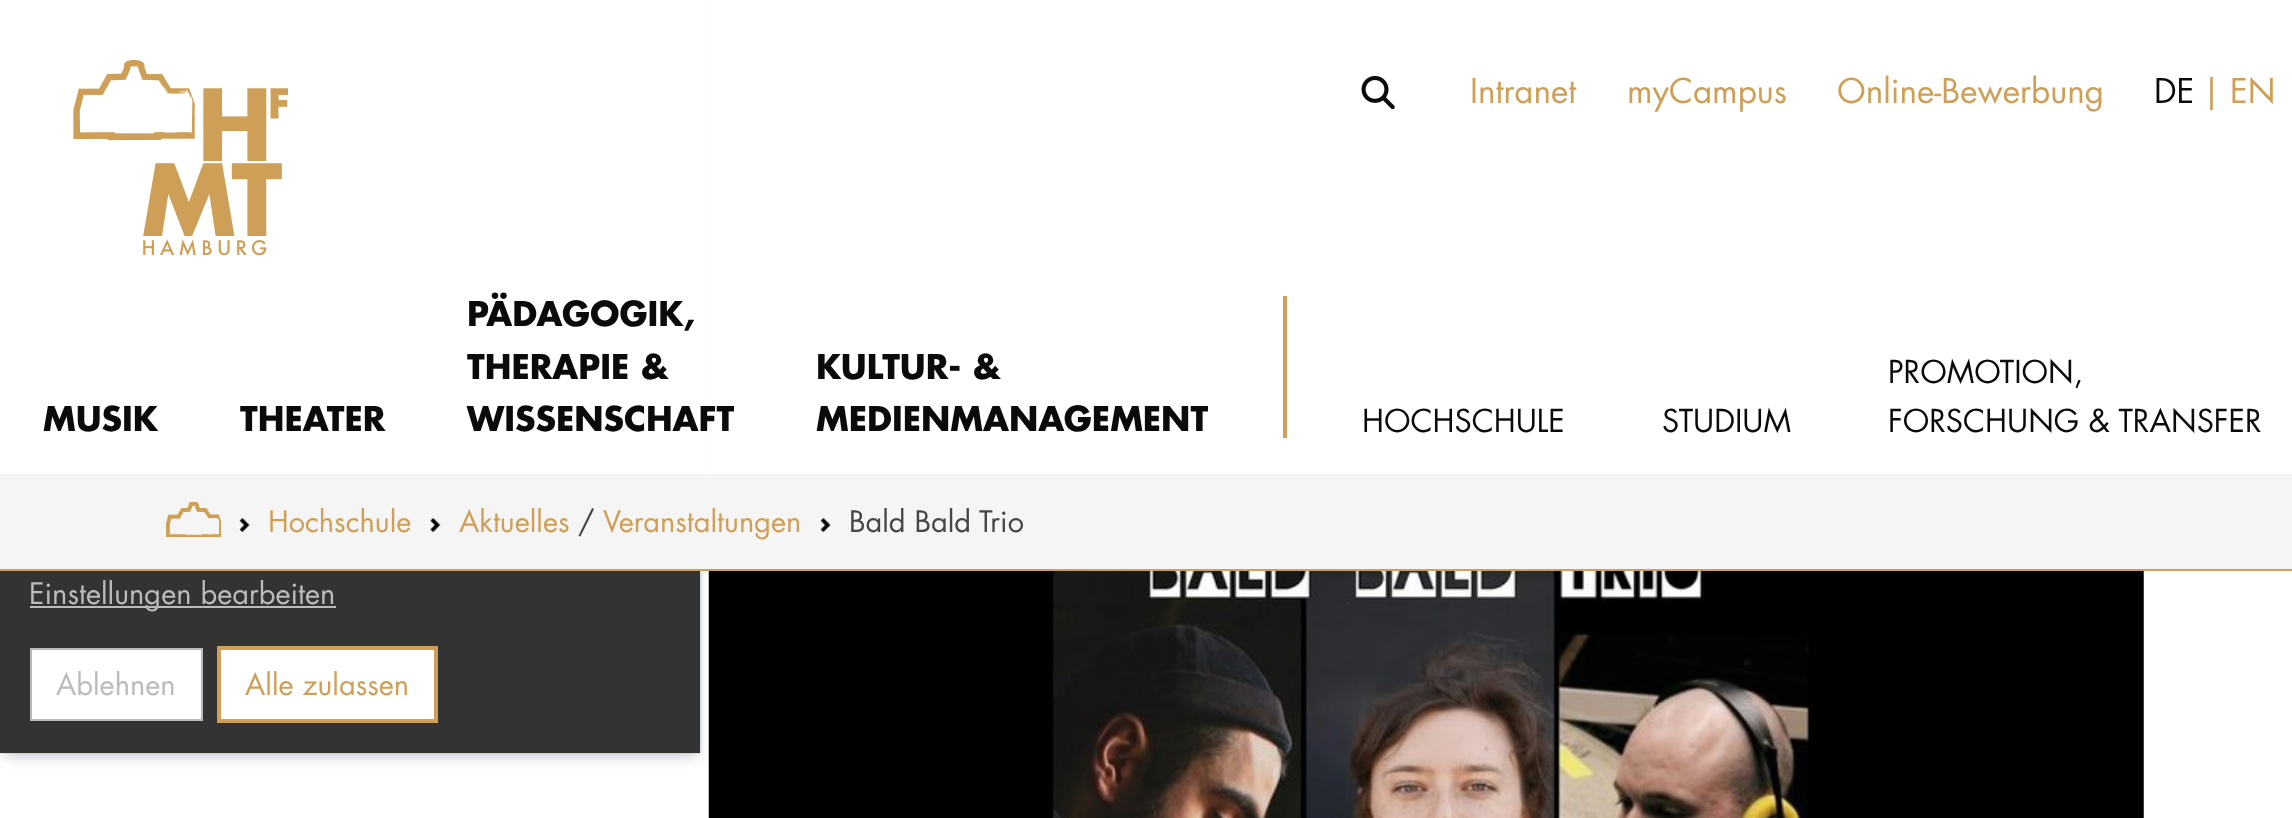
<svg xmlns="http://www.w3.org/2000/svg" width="2292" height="818">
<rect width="100%" height="100%" fill="#fff"/>
<rect x="-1" y="-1" width="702" height="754" fill="none" stroke="#ebedf0" stroke-width="2"/>
<image x="708" y="571" width="1436" height="247" href="media/6.png"/>
<rect x="4" y="-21" width="693" height="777" fill="#091e4240" filter="blur(7px)"/>
<rect width="709" height="474" fill="#fff"/>
<rect y="569" width="2292" height="2" fill="#ce9f56"/>
<image x="73" y="60" width="215" height="196" href="media/1.png"/>
<image x="1361" y="75" width="34" height="35" href="media/2.png"/>
<text x="1470" y="103" style="font-family:Futura;font-size:33.25px;fill:#ce9f56">Intranet</text>
<text x="1627" y="103" style="font-family:Futura;font-size:33.25px;fill:#ce9f56">myCampus</text>
<text x="1837" y="103" style="font-family:Futura;font-size:33.25px;fill:#ce9f56">Online-Bewerbung</text>
<text x="2154" y="103" style="font-family:Futura;font-size:33.25px;fill:#0b0b0b">DE</text>
<text x="2202" y="103" style="font-family:Futura;font-size:33.25px;fill:#ce9f56">|</text>
<text x="2230" y="103" style="font-family:Futura;font-size:33.25px;fill:#ce9f56">EN</text>
<text x="43" y="431" style="font-family:Futura;font-size:33.25px;font-weight:bold;fill:#0b0b0b">MUSIK</text>
<text x="240" y="431" style="font-family:Futura;font-size:33.25px;font-weight:bold;fill:#0b0b0b">THEATER</text>
<text x="467" y="326" style="font-family:Futura;font-size:33.25px;font-weight:bold;fill:#0b0b0b">PÄDAGOGIK,</text>
<text x="467" y="379" style="font-family:Futura;font-size:33.25px;font-weight:bold;fill:#0b0b0b">THERAPIE &amp;</text>
<text x="467" y="431" style="font-family:Futura;font-size:33.25px;font-weight:bold;fill:#0b0b0b">WISSENSCHAFT</text>
<text x="816" y="379" style="font-family:Futura;font-size:33.25px;font-weight:bold;fill:#0b0b0b">KULTUR- &amp;</text>
<text x="816" y="431" style="font-family:Futura;font-size:33.25px;font-weight:bold;fill:#0b0b0b">MEDIENMANAGEMENT</text>
<rect x="1283" y="296" width="4" height="142" fill="#ce9f56"/>
<text x="1362" y="432" style="font-family:Futura;font-size:30.75px;fill:#0b0b0b">HOCHSCHULE</text>
<text x="1662" y="432" style="font-family:Futura;font-size:30.75px;fill:#0b0b0b">STUDIUM</text>
<text x="1888" y="383" style="font-family:Futura;font-size:30.75px;fill:#0b0b0b">PROMOTION,</text>
<text x="1888" y="432" style="font-family:Futura;font-size:30.75px;fill:#0b0b0b">FORSCHUNG &amp; TRANSFER</text>
<rect y="474" width="2292" height="95" fill="#f5f5f5"/>
<image x="166" y="502" width="55" height="35" href="media/3.png"/>
<image x="239" y="517" width="11" height="15" href="media/4.png"/>
<text x="268" y="532" style="font-family:Futura;font-size:29px;fill:#ce9f56">Hochschule</text>
<image x="430" y="517" width="11" height="15" href="media/5.png"/>
<text x="459" y="532" style="font-family:Futura;font-size:29px;fill:#ce9f56">Aktuelles</text>
<text x="578" y="532" style="font-family:Futura;font-size:29px;fill:#464646">/</text>
<text x="603" y="532" style="font-family:Futura;font-size:29px;fill:#ce9f56">Veranstaltungen</text>
<image x="820" y="517" width="11" height="15" href="media/4.png"/>
<text x="849" y="532" style="font-family:Futura;font-size:29px;fill:#464646">Bald Bald Trio</text>
<rect y="571" width="700" height="182" fill="#333"/>
<rect x="30" y="606" width="306" height="2" fill="#bbb"/>
<text x="29" y="604" style="font-family:Futura;font-size:29px;fill:#bbb">Einstellungen bearbeiten</text>
<rect x="31" y="649" width="171" height="71" fill="#fff" stroke="#b9b9b9" stroke-width="2"/>
<text x="56" y="695" style="font-family:Futura;font-size:29px;fill:#bbb">Ablehnen</text>
<rect x="219" y="648" width="217" height="73" fill="#fff" stroke="#ce9f56" stroke-width="4"/>
<text x="245" y="695" style="font-family:Futura;font-size:29px;fill:#ce9f56">Alle zulassen</text>
</svg>
